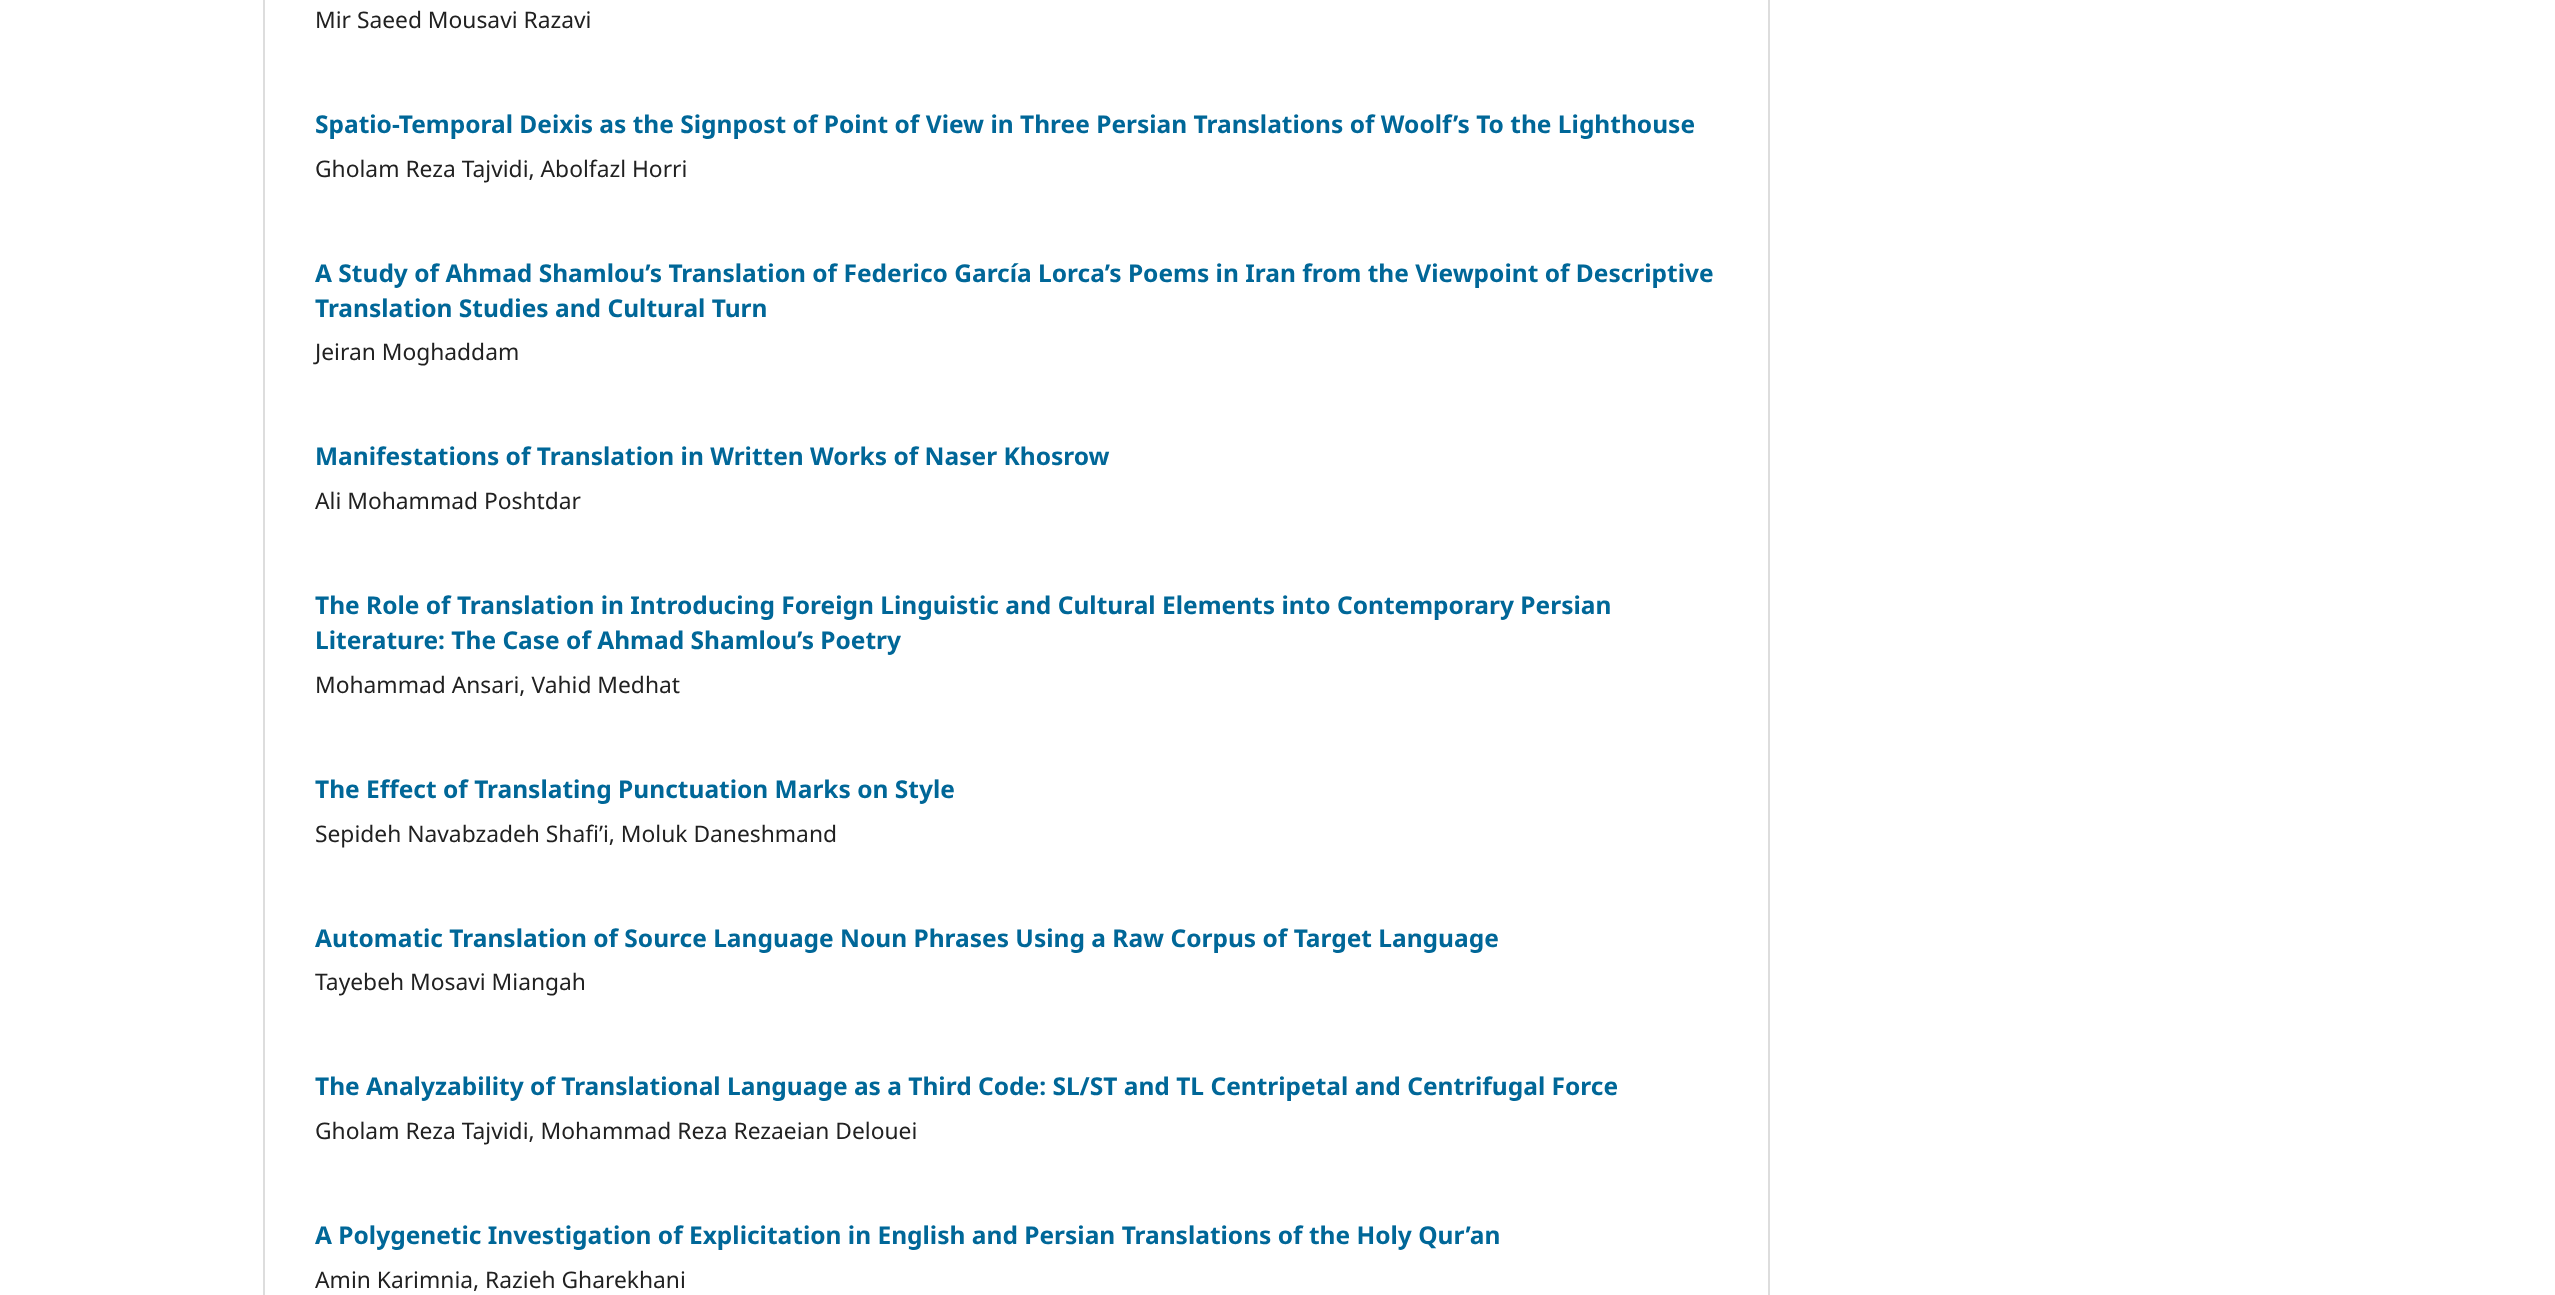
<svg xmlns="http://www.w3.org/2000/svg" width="2555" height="1295">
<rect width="100%" height="100%" fill="#fff"/>
<rect x="263" width="2" height="1295" fill="#ddd"/>
<text x="315" y="28" style="font-family:Noto Sans;font-size:22.8px;fill:#212121">Mir Saeed Mousavi Razavi</text>
<text x="315" y="133" style="font-family:Noto Sans;font-size:24.5px;font-weight:bold;fill:#006798">Spatio-Temporal Deixis as the Signpost of Point of View in Three Persian Translations of Woolf’s To the Lighthouse</text>
<text x="315" y="177" style="font-family:Noto Sans;font-size:22.8px;fill:#212121">Gholam Reza Tajvidi, Abolfazl Horri</text>
<text x="315" y="282" style="font-family:Noto Sans;font-size:24.5px;font-weight:bold;fill:#006798">A Study of Ahmad Shamlou’s Translation of Federico García Lorca’s Poems in Iran from the Viewpoint of Descriptive</text>
<text x="315" y="317" style="font-family:Noto Sans;font-size:24.5px;font-weight:bold;fill:#006798">Translation Studies and Cultural Turn</text>
<text x="315" y="360" style="font-family:Noto Sans;font-size:22.8px;fill:#212121">Jeiran Moghaddam</text>
<text x="315" y="465" style="font-family:Noto Sans;font-size:24.5px;font-weight:bold;fill:#006798">Manifestations of Translation in Written Works of Naser Khosrow</text>
<text x="315" y="509" style="font-family:Noto Sans;font-size:22.8px;fill:#212121">Ali Mohammad Poshtdar</text>
<text x="315" y="614" style="font-family:Noto Sans;font-size:24.5px;font-weight:bold;fill:#006798">The Role of Translation in Introducing Foreign Linguistic and Cultural Elements into Contemporary Persian</text>
<text x="315" y="649" style="font-family:Noto Sans;font-size:24.5px;font-weight:bold;fill:#006798">Literature: The Case of Ahmad Shamlou’s Poetry </text>
<text x="315" y="693" style="font-family:Noto Sans;font-size:22.8px;fill:#212121">Mohammad Ansari, Vahid Medhat</text>
<text x="315" y="798" style="font-family:Noto Sans;font-size:24.5px;font-weight:bold;fill:#006798">The Effect of Translating Punctuation Marks on Style</text>
<text x="315" y="842" style="font-family:Noto Sans;font-size:22.8px;fill:#212121">Sepideh Navabzadeh Shafi’i, Moluk Daneshmand</text>
<text x="315" y="947" style="font-family:Noto Sans;font-size:24.5px;font-weight:bold;fill:#006798">Automatic Translation of Source Language Noun Phrases Using a Raw Corpus of Target Language</text>
<text x="315" y="990" style="font-family:Noto Sans;font-size:22.8px;fill:#212121">Tayebeh Mosavi Miangah</text>
<text x="315" y="1095" style="font-family:Noto Sans;font-size:24.5px;font-weight:bold;fill:#006798">The Analyzability of Translational Language as a Third Code: SL/ST and TL Centripetal and Centrifugal Force</text>
<text x="315" y="1139" style="font-family:Noto Sans;font-size:22.8px;fill:#212121">Gholam Reza Tajvidi, Mohammad Reza Rezaeian Delouei</text>
<text x="315" y="1244" style="font-family:Noto Sans;font-size:24.5px;font-weight:bold;fill:#006798">A Polygenetic Investigation of Explicitation in English and Persian Translations of the Holy Qur’an</text>
<text x="315" y="1288" style="font-family:Noto Sans;font-size:22.8px;fill:#212121">Amin Karimnia, Razieh Gharekhani</text>
<rect x="1768" width="2" height="1295" fill="#ddd"/>
</svg>
